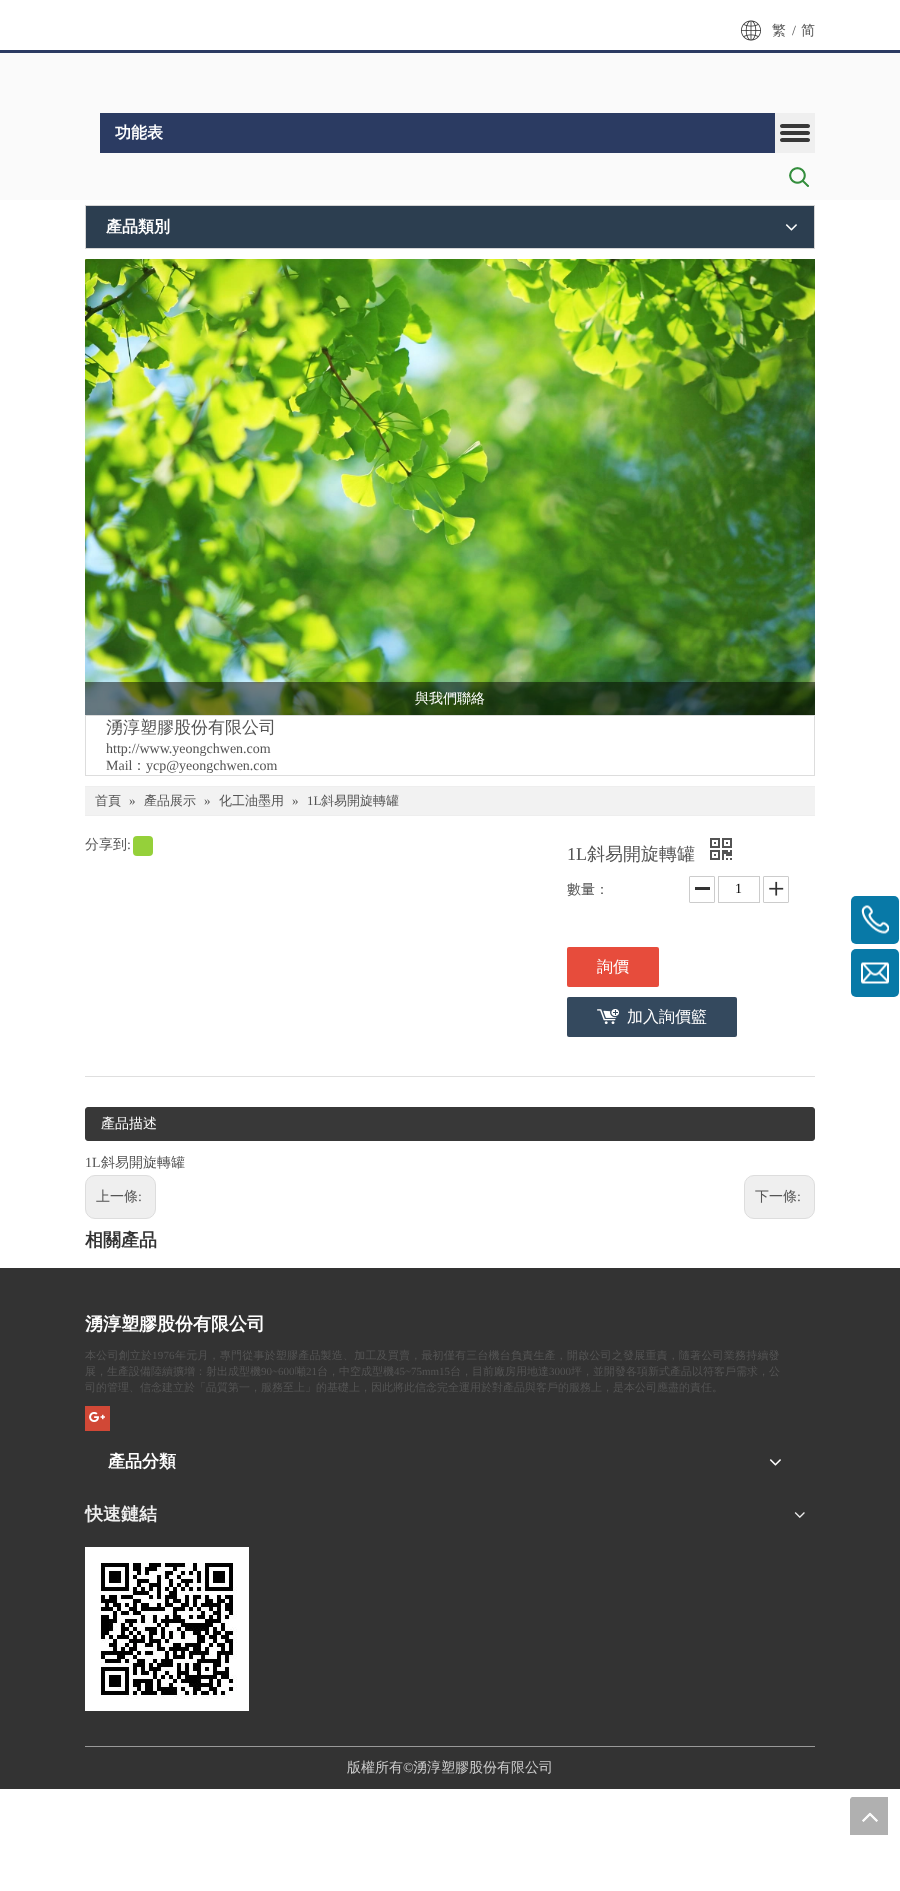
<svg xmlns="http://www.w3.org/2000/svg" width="900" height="1891">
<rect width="100%" height="100%" fill="#fff"/>
<image x="741" y="20" width="20" height="21" href="media/1.png"/>
<text x="772" y="35" style="font-family:WenQuanYi Zen Hei;font-size:14px;font-weight:500;fill:#545454">繁</text>
<text x="792" y="35" style="font-family:Liberation Serif;font-size:14px;fill:#545454">/</text>
<text x="801" y="35" style="font-family:WenQuanYi Zen Hei;font-size:14px;font-weight:500;fill:#545454">简</text>
<rect y="53" width="900" height="147" fill="#fafafa"/>
<rect y="50" width="900" height="3" fill="#2b3b62"/>
<rect x="100" y="113" width="675" height="40" fill="#2b3b62"/>
<text x="115" y="138" style="font-family:WenQuanYi Zen Hei;font-size:16px;font-weight:bold;fill:#fff">功能表</text>
<rect x="775" y="113" width="40" height="40" fill="#efefef"/>
<image x="780" y="124" width="30" height="18" href="media/2.png"/>
<image x="789" y="167" width="20" height="20" href="media/3.png"/>
<rect x="85.5" y="205.5" width="729" height="43" fill="none" stroke="#d6d6d6"/>
<rect x="86" y="206" width="728" height="42" fill="#2c3e50"/>
<text x="106" y="232" style="font-family:WenQuanYi Zen Hei;font-size:16px;font-weight:bold;fill:#fff">產品類別</text>
<image x="785" y="224" width="12" height="7" href="media/4.png"/>
<image x="85" y="259" width="730" height="456" href="media/5.png"/>
<rect x="85" y="682" width="730" height="33" fill="#00000080"/>
<text x="415" y="703" style="font-family:WenQuanYi Zen Hei;font-size:14px;font-weight:500;fill:#fff">與我們聯絡</text>
<rect x="85.5" y="715.5" width="729" height="60" fill="none" stroke="#ddd"/>
<text x="106" y="733" style="font-family:WenQuanYi Zen Hei;font-size:17px;font-weight:500;fill:#545454">湧淳塑膠股份有限公司</text>
<text x="106" y="753" style="font-family:Liberation Serif;font-size:14px;fill:#545454">http://www.yeongchwen.com</text>
<text x="106" y="770" style="font-family:Liberation Serif;font-size:14px;fill:#545454">Mail</text>
<text x="132" y="770" style="font-family:WenQuanYi Zen Hei;font-size:14px;font-weight:500;fill:#545454">：</text>
<text x="146" y="770" style="font-family:Liberation Serif;font-size:14px;fill:#545454">ycp@yeongchwen.com</text>
<rect x="85" y="787" width="730" height="28" fill="#f2f2f2"/>
<rect x="85" y="786" width="730" height="1" fill="#eee"/>
<rect x="85" y="815" width="730" height="1" fill="#eee"/>
<text x="95" y="805" style="font-family:WenQuanYi Zen Hei;font-size:13px;font-weight:500;fill:#545454">首頁</text>
<text x="129" y="805" style="font-family:Liberation Serif;font-size:13px;fill:#545454">»</text>
<text x="144" y="805" style="font-family:WenQuanYi Zen Hei;font-size:13px;font-weight:500;fill:#545454">產品展示</text>
<text x="204" y="805" style="font-family:Liberation Serif;font-size:13px;fill:#545454">»</text>
<text x="219" y="805" style="font-family:WenQuanYi Zen Hei;font-size:13px;font-weight:500;fill:#545454">化工油墨用</text>
<text x="292" y="805" style="font-family:Liberation Serif;font-size:13px;fill:#545454">»</text>
<text x="307" y="805" style="font-family:Liberation Serif;font-size:13px;fill:#545454">1L</text>
<text x="321" y="805" style="font-family:WenQuanYi Zen Hei;font-size:13px;font-weight:500;fill:#545454">斜易開旋轉罐</text>
<text x="85" y="849" style="font-family:WenQuanYi Zen Hei;font-size:14px;font-weight:500;fill:#545454">分享到</text>
<text x="127" y="849" style="font-family:Liberation Serif;font-size:14px;fill:#545454">:</text>
<rect x="133" y="836" width="20" height="20" rx="4" fill="#95d03a"/>
<text x="567" y="860" style="font-family:Liberation Serif;font-size:18px;fill:#545454">1L</text>
<text x="587" y="860" style="font-family:WenQuanYi Zen Hei;font-size:18px;font-weight:500;fill:#545454">斜易開旋轉罐</text>
<image x="710" y="838" width="22" height="22" href="media/6.png"/>
<text x="567" y="894" style="font-family:WenQuanYi Zen Hei;font-size:14px;font-weight:500;fill:#545454">數量：</text>
<rect x="695" y="887" width="15" height="3" fill="#333"/>
<rect x="689.5" y="876.5" width="25" height="26" rx="0.5" fill="none" stroke="#ccc"/>
<rect x="718.5" y="876.5" width="41" height="26" fill="none" stroke="#ccc"/>
<text x="735" y="893" style="font-family:Liberation Serif;font-size:14px;fill:#000">1</text>
<image x="769" y="881" width="15" height="15" href="media/7.png"/>
<rect x="763.5" y="876.5" width="25" height="26" rx="0.5" fill="none" stroke="#ccc"/>
<rect x="567" y="947" width="92" height="40" rx="2" fill="#e74c3c"/>
<text x="597" y="972" style="font-family:WenQuanYi Zen Hei;font-size:16px;font-weight:500;fill:#fff">詢價</text>
<rect x="567" y="997" width="170" height="40" rx="2" fill="#34495e"/>
<image x="597" y="1009" width="22" height="15" href="media/8.png"/>
<text x="627" y="1022" style="font-family:WenQuanYi Zen Hei;font-size:16px;font-weight:500;fill:#fff">加入詢價籃</text>
<rect x="85" y="1076" width="730" height="1" fill="#dfdfdf"/>
<rect x="85.5" y="1107.5" width="729" height="33" rx="2.5" fill="#383838" stroke="#383838"/>
<text x="101" y="1128" style="font-family:WenQuanYi Zen Hei;font-size:14px;font-weight:500;fill:#fff">產品描述</text>
<text x="85" y="1167" style="font-family:Liberation Serif;font-size:14px;fill:#545454">1L</text>
<text x="101" y="1167" style="font-family:WenQuanYi Zen Hei;font-size:14px;font-weight:500;fill:#545454">斜易開旋轉罐</text>
<rect x="85.5" y="1175.5" width="70" height="43" rx="9.5" fill="#efefef" stroke="#ddd"/>
<text x="96" y="1201" style="font-family:WenQuanYi Zen Hei;font-size:14px;font-weight:500;fill:#545454">上一條</text>
<text x="138" y="1201" style="font-family:Liberation Serif;font-size:14px;fill:#545454">:</text>
<rect x="744.5" y="1175.5" width="70" height="43" rx="9.5" fill="#efefef" stroke="#ddd"/>
<text x="755" y="1201" style="font-family:WenQuanYi Zen Hei;font-size:14px;font-weight:500;fill:#545454">下一條</text>
<text x="797" y="1201" style="font-family:Liberation Serif;font-size:14px;fill:#545454">:</text>
<text x="85" y="1246" style="font-family:WenQuanYi Zen Hei;font-size:18px;font-weight:bold;fill:#333">相關產品</text>
<rect y="1268" width="900" height="521" fill="#333"/>
<rect x="851" y="896" width="48" height="48" rx="5" fill="#0879a7"/>
<image x="861" y="905" width="28" height="29" href="media/9.png"/>
<rect x="851" y="949" width="48" height="48" rx="5" fill="#0879a7"/>
<image x="861" y="962" width="28" height="22" href="media/10.png"/>
<text x="85" y="1330" style="font-family:WenQuanYi Zen Hei;font-size:18px;font-weight:bold;fill:#fff">湧淳塑膠股份有限公司</text>
<text x="85" y="1359" style="font-family:WenQuanYi Zen Hei;font-size:11px;font-weight:500;letter-spacing:0.2px;fill:#545454">本公司創立於</text>
<text x="152" y="1359" style="font-family:Liberation Serif;font-size:11px;letter-spacing:0.2px;fill:#545454">1976</text>
<text x="175" y="1359" style="font-family:WenQuanYi Zen Hei;font-size:11px;font-weight:500;letter-spacing:0.2px;fill:#545454">年元月，專門從事於塑膠產品製造、加工及買賣，最初僅有三台機台負責生產，開啟公司之發展重責，隨著公司業務持續發</text>
<text x="85" y="1375" style="font-family:WenQuanYi Zen Hei;font-size:11px;font-weight:500;fill:#545454">展，生產設備陸續擴增：射出成型機</text>
<text x="261" y="1375" style="font-family:Liberation Serif;font-size:11px;fill:#545454">90~600</text>
<text x="295" y="1375" style="font-family:WenQuanYi Zen Hei;font-size:11px;font-weight:500;fill:#545454">噸</text>
<text x="306" y="1375" style="font-family:Liberation Serif;font-size:11px;fill:#545454">21</text>
<text x="317" y="1375" style="font-family:WenQuanYi Zen Hei;font-size:11px;font-weight:500;fill:#545454">台，中空成型機</text>
<text x="394" y="1375" style="font-family:Liberation Serif;font-size:11px;fill:#545454">45~75mm15</text>
<text x="450" y="1375" style="font-family:WenQuanYi Zen Hei;font-size:11px;font-weight:500;fill:#545454">台，目前廠房用地達</text>
<text x="549" y="1375" style="font-family:Liberation Serif;font-size:11px;fill:#545454">3000</text>
<text x="571" y="1375" style="font-family:WenQuanYi Zen Hei;font-size:11px;font-weight:500;fill:#545454">坪，並開發各項新式產品以符客戶需求，公</text>
<text x="85" y="1391" style="font-family:WenQuanYi Zen Hei;font-size:11px;font-weight:500;fill:#545454">司的管理、信念建立於「品質第一，服務至上」的基礎上，因此將此信念完全運用於對產品與客戶的服務上，是本公司應盡的責任。</text>
<rect x="85" y="1406" width="25" height="25" fill="#d14836"/>
<image x="89" y="1412" width="16" height="10" href="media/11.png"/>
<text x="108" y="1467" style="font-family:WenQuanYi Zen Hei;font-size:17px;font-weight:bold;fill:#fff">產品分類</text>
<image x="769" y="1459" width="12" height="7" href="media/12.png"/>
<text x="85" y="1520" style="font-family:WenQuanYi Zen Hei;font-size:18px;font-weight:bold;fill:#eee">快速鏈結</text>
<image x="794" y="1512" width="11" height="6" href="media/13.png"/>
<image x="85" y="1547" width="164" height="164" href="media/14.png"/>
<rect x="85" y="1746" width="730" height="1" fill="#999"/>
<text x="347" y="1772" style="font-family:WenQuanYi Zen Hei;font-size:14px;font-weight:500;fill:#ccc">版權所有</text>
<text x="403" y="1772" style="font-family:Liberation Serif;font-size:14px;fill:#ccc">©</text>
<text x="413" y="1772" style="font-family:WenQuanYi Zen Hei;font-size:14px;font-weight:500;fill:#ccc">湧淳塑膠股份有限公司</text>
<image x="850" y="1797" width="38" height="38" href="media/15.png"/>
</svg>
